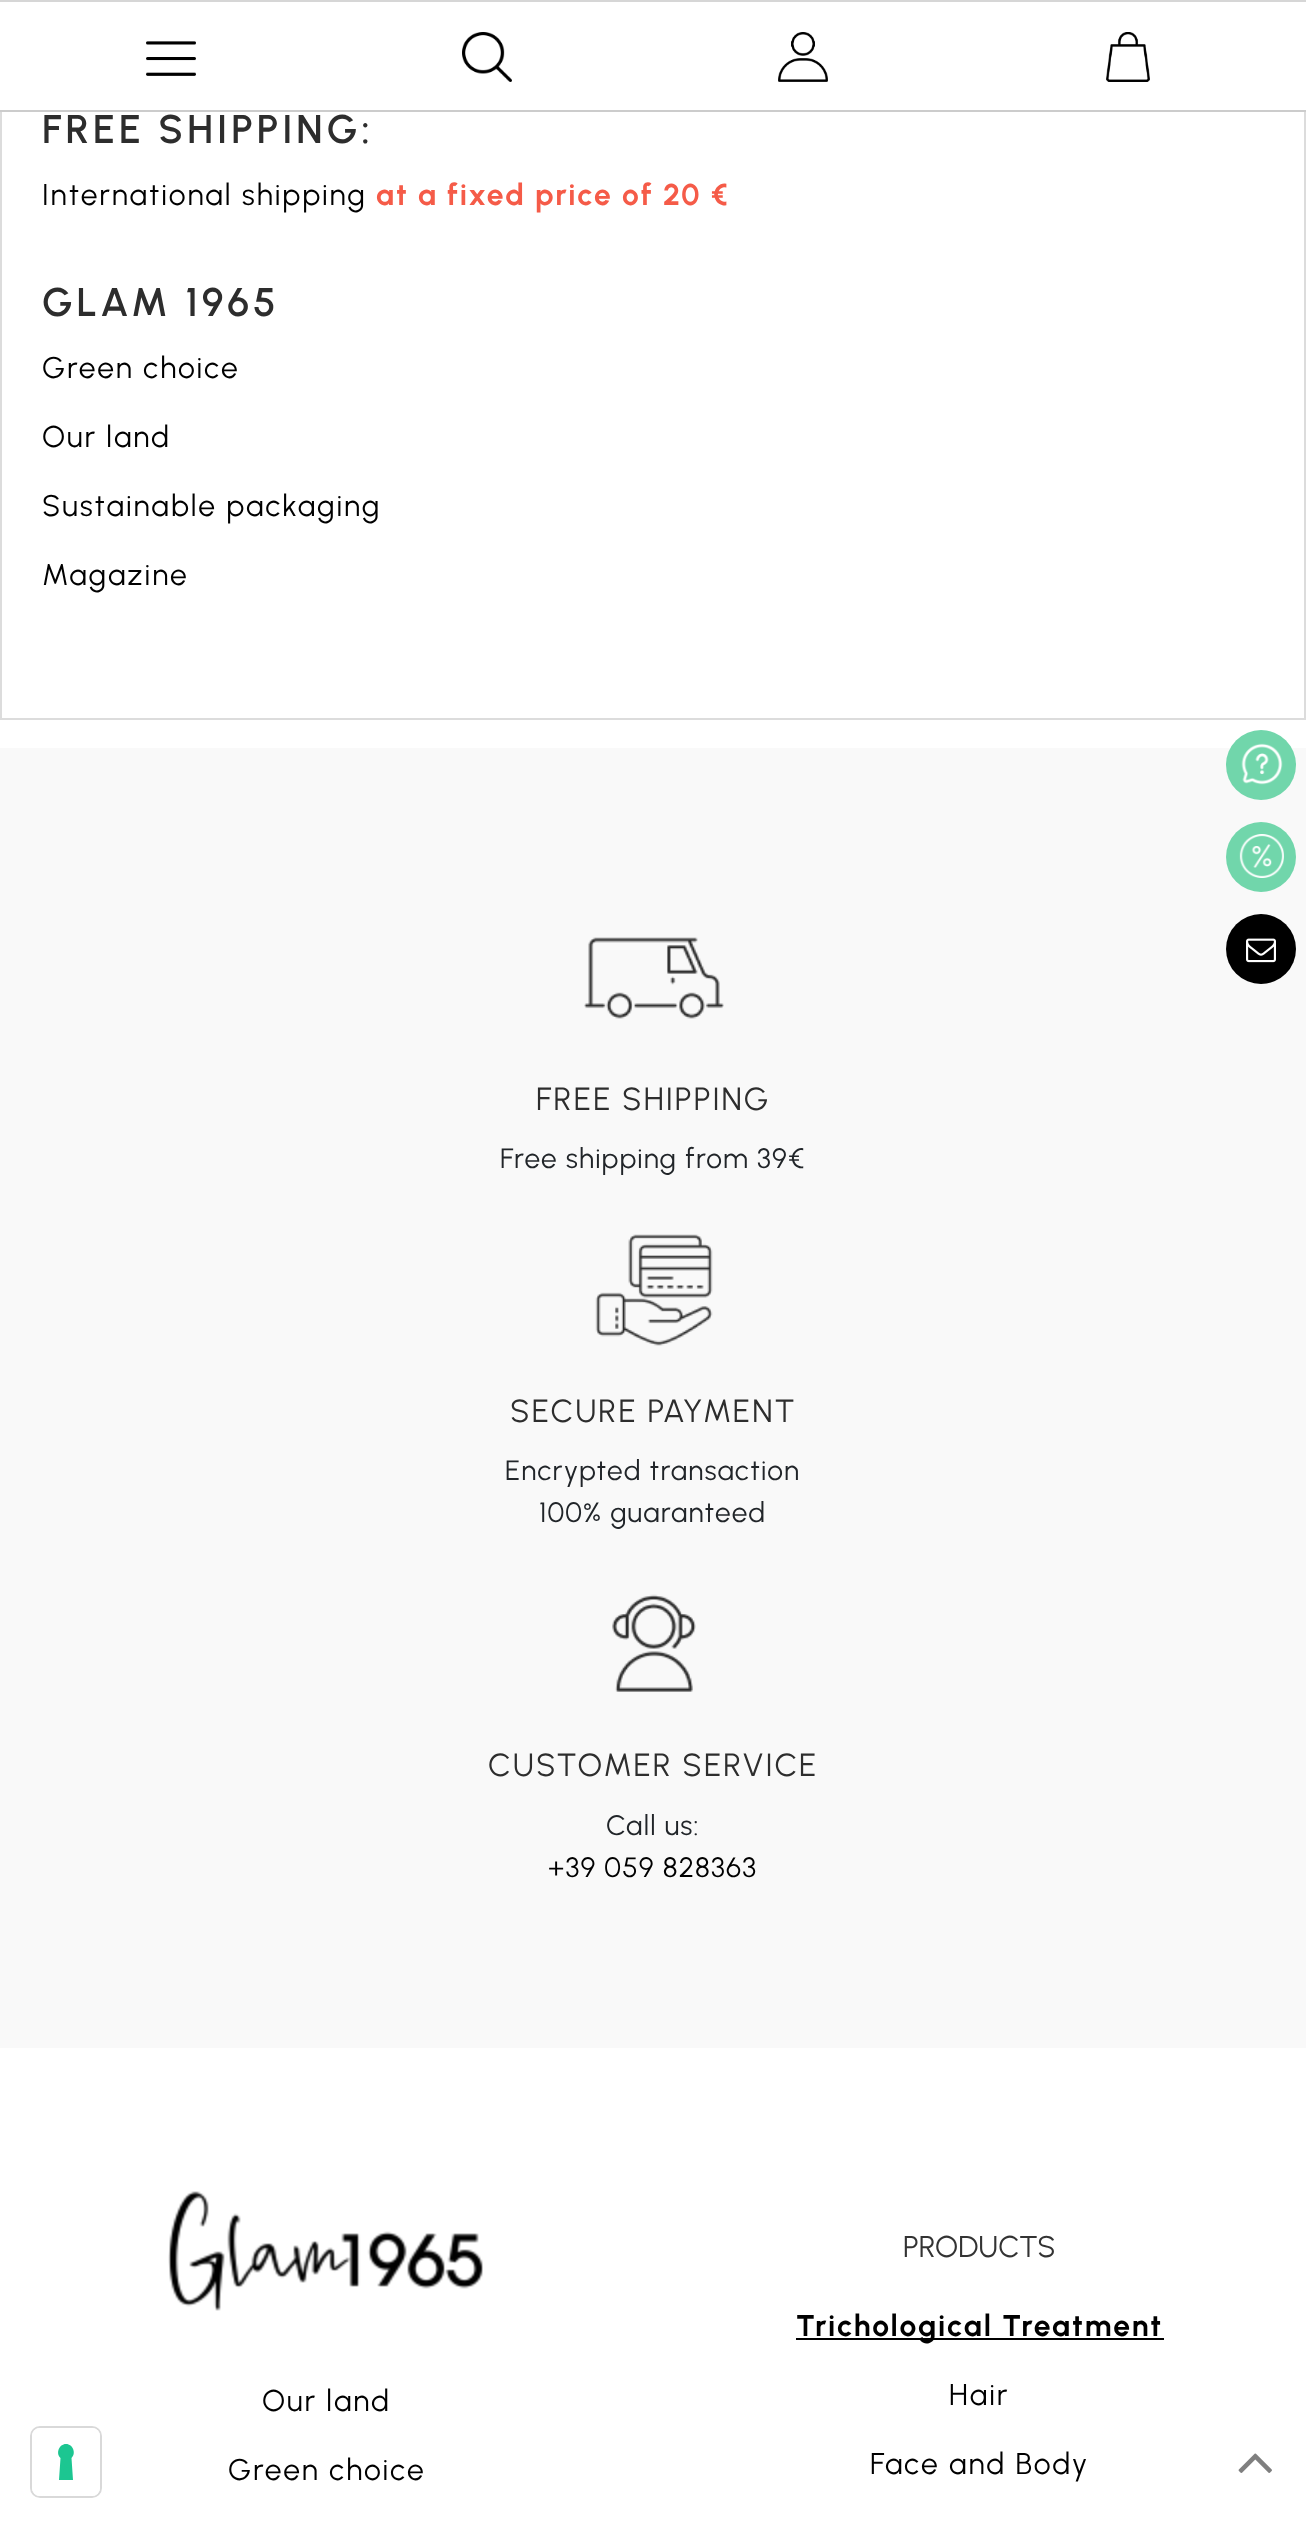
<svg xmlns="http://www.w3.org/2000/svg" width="1306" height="2527">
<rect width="100%" height="100%" fill="#fff"/>
<rect x="1" y="-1" width="1304" height="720" fill="none" stroke="#dcdcdc" stroke-width="2"/>
<rect y="110" width="1306" height="2" fill="#ccc"/>
<rect y="2" width="1306" height="108" fill="#fff"/>
<rect width="1306" height="2" fill="#d6d6d6"/>
<image x="146" y="41" width="50" height="35" href="media/1.png"/>
<image x="462" y="32" width="50" height="50" href="media/2.png"/>
<image x="778" y="32" width="50" height="50" href="media/3.png"/>
<image x="1106" y="32" width="44" height="50" href="media/4.png"/>
<text x="42" y="143" style="font-family:Urbanist;font-size:40px;font-weight:600;letter-spacing:4px;fill:#2d2d2d">FREE SHIPPING:</text>
<text x="42" y="205" style="font-family:Urbanist;font-size:30px;letter-spacing:2px;fill:#000">International shipping</text>
<text x="376" y="205" style="font-family:Urbanist;font-size:30px;font-weight:bold;letter-spacing:2px;fill:#f55b48">at a fixed price of 20 €</text>
<text x="42" y="316" style="font-family:Urbanist;font-size:40px;font-weight:600;letter-spacing:4px;fill:#2d2d2d">GLAM 1965</text>
<text x="42" y="378" style="font-family:Urbanist;font-size:30px;letter-spacing:2px;fill:#000">Green choice</text>
<text x="42" y="447" style="font-family:Urbanist;font-size:30px;letter-spacing:2px;fill:#000">Our land</text>
<text x="42" y="516" style="font-family:Urbanist;font-size:30px;letter-spacing:2px;fill:#000">Sustainable packaging</text>
<text x="42" y="585" style="font-family:Urbanist;font-size:30px;letter-spacing:2px;fill:#000">Magazine</text>
<rect y="748" width="1306" height="1300" fill="#f9f9f9"/>
<image x="584" y="937" width="140" height="82" href="media/5.png"/>
<text x="536" y="1110" style="font-family:Urbanist;font-size:32px;letter-spacing:2px;fill:#2d2d2d">FREE SHIPPING</text>
<text x="500" y="1168" style="font-family:Urbanist;font-size:28px;letter-spacing:1.2px;fill:#212529">Free shipping from 39€</text>
<image x="595" y="1234" width="118" height="112" href="media/6.png"/>
<text x="510" y="1422" style="font-family:Urbanist;font-size:32px;letter-spacing:2px;fill:#2d2d2d">SECURE PAYMENT</text>
<text x="505" y="1480" style="font-family:Urbanist;font-size:28px;letter-spacing:1.2px;fill:#212529">Encrypted transaction</text>
<text x="539" y="1522" style="font-family:Urbanist;font-size:28px;letter-spacing:1.2px;fill:#212529">100% guaranteed</text>
<image x="612" y="1594" width="84" height="98" href="media/7.png"/>
<text x="488" y="1776" style="font-family:Urbanist;font-size:32px;letter-spacing:2px;fill:#2d2d2d">CUSTOMER SERVICE</text>
<text x="606" y="1835" style="font-family:Urbanist;font-size:28px;letter-spacing:1.2px;fill:#212529">Call us:</text>
<text x="548" y="1877" style="font-family:Urbanist;font-size:28px;letter-spacing:1.2px;fill:#000">+39 059 828363</text>
<image x="168" y="2191" width="315" height="120" href="media/8.png"/>
<text x="262" y="2411" style="font-family:Urbanist;font-size:30px;letter-spacing:2px;fill:#000">Our land</text>
<text x="228" y="2480" style="font-family:Urbanist;font-size:30px;letter-spacing:2px;fill:#000">Green choice</text>
<text x="903" y="2257" style="font-family:Urbanist;font-size:30px;fill:#333">PRODUCTS</text>
<rect x="796" y="2338" width="368" height="2" fill="#000"/>
<text x="796" y="2336" style="font-family:Urbanist;font-size:30px;font-weight:bold;letter-spacing:2px;fill:#000">Trichological Treatment</text>
<text x="949" y="2405" style="font-family:Urbanist;font-size:30px;letter-spacing:2px;fill:#000">Hair</text>
<text x="870" y="2474" style="font-family:Urbanist;font-size:30px;letter-spacing:2px;fill:#000">Face and Body</text>
<circle cx="1261" cy="765" r="35" fill="#71d6ab"/>
<image x="1241" y="743" width="42" height="42" href="media/9.png"/>
<circle cx="1261" cy="857" r="35" fill="#71d6ab"/>
<image x="1239" y="834" width="45" height="44" href="media/10.png"/>
<circle cx="1261" cy="949" r="35" fill="#000"/>
<image x="1246" y="938" width="30" height="25" href="media/11.png"/>
<rect x="31" y="2427" width="70" height="70" rx="9" fill="none" stroke="#d9d9d9" stroke-width="2"/>
<rect x="32" y="2428" width="68" height="68" rx="8" fill="#fff"/>
<path d="M66 2444c7 0 10.5 9.5 5.5 14l1.5 22h-14l1.5-22c-5-4.5-1.5-14 5.5-14z" fill="#1cc691" fill-rule="evenodd"/>
<image x="1238" y="2453" width="34" height="20" href="media/12.png"/>
</svg>
